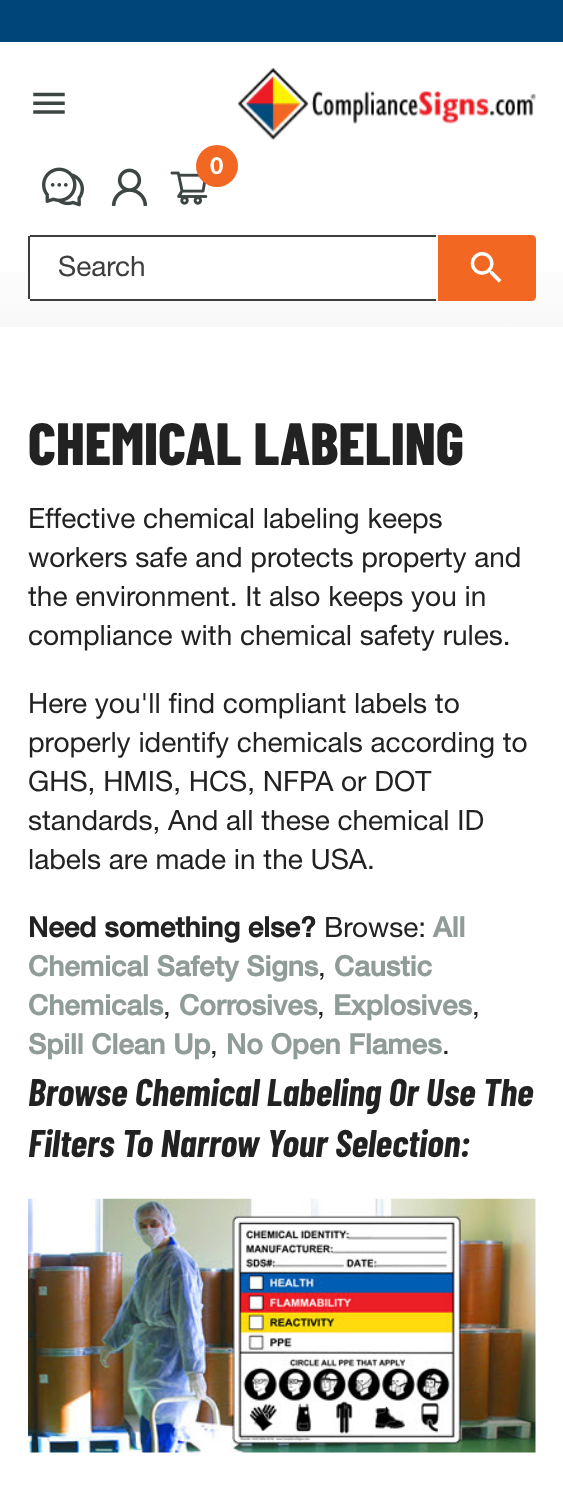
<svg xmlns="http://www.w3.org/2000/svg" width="563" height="1494">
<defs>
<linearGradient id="g1" gradientUnits="userSpaceOnUse" x1="282" y1="42" x2="282" y2="327"><stop offset="0.7" stop-color="#fff"/><stop offset="1" stop-color="#f8f8f8"/></linearGradient>
</defs>
<rect width="100%" height="100%" fill="#fff"/>
<rect width="563" height="42" fill="#004579"/>
<rect y="272" width="563" height="55" fill="url(#g1)"/>
<image x="33" y="92" width="32" height="22" href="media/1.png"/>
<image x="238" y="68" width="298" height="72" href="media/2.png"/>
<image x="42" y="167" width="42" height="40" href="media/3.png"/>
<image x="111" y="168" width="37" height="38" href="media/4.png"/>
<image x="170" y="171" width="38" height="34" href="media/5.png"/>
<circle cx="217" cy="166" r="21" fill="#f26822"/>
<text x="210" y="174" style="font-family:'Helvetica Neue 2';font-size:24px;font-weight:bold;fill:#fff">0</text>
<rect x="28" y="272" width="508" height="29" fill="#fff"/>
<rect x="30" y="235" width="406" height="2" fill="#3e3e3e"/>
<rect x="30" y="299" width="406" height="2" fill="#3e3e3e"/>
<rect x="28" y="236" width="2" height="63" fill="#3e3e3e"/>
<text x="58" y="276" style="font-family:Helvetica Neue;font-size:28px;fill:#3e3e3e">Search</text>
<path d="M438 235h94c2 0 4 2 4 4v58c0 2-2 4-4 4h-94z" fill="#f26822"/>
<image x="470" y="252" width="32" height="31" href="media/6.png"/>
<text x="28" y="465" style="font-family:Barlow Condensed;font-size:59.5px;font-weight:800;fill:#222">CHEMICAL LABELING</text>
<text x="28" y="528" style="font-family:Helvetica Neue;font-size:28px;fill:#222">Effective chemical labeling keeps</text>
<text x="28" y="567" style="font-family:Helvetica Neue;font-size:28px;fill:#222">workers safe and protects property and</text>
<text x="28" y="606" style="font-family:Helvetica Neue;font-size:28px;fill:#222">the environment. It also keeps you in</text>
<text x="28" y="645" style="font-family:Helvetica Neue;font-size:28px;fill:#222">compliance with chemical safety rules.</text>
<text x="28" y="713" style="font-family:Helvetica Neue;font-size:28px;fill:#222">Here you'll find compliant labels to</text>
<text x="28" y="752" style="font-family:Helvetica Neue;font-size:28px;fill:#222">properly identify chemicals according to</text>
<text x="28" y="791" style="font-family:Helvetica Neue;font-size:28px;fill:#222">GHS, HMIS, HCS, NFPA or DOT</text>
<text x="28" y="830" style="font-family:Helvetica Neue;font-size:28px;fill:#222">standards, And all these chemical ID</text>
<text x="28" y="869" style="font-family:Helvetica Neue;font-size:28px;fill:#222">labels are made in the USA.</text>
<text x="28" y="937" style="font-family:Helvetica Neue;font-size:28px;font-weight:bold;fill:#222">Need something else?</text>
<text x="324" y="937" style="font-family:Helvetica Neue;font-size:28px;fill:#222">Browse:</text>
<text x="433" y="937" style="font-family:Helvetica Neue;font-size:28px;font-weight:bold;fill:#909c97">All</text>
<text x="28" y="976" style="font-family:Helvetica Neue;font-size:28px;font-weight:bold;fill:#909c97">Chemical Safety Signs</text>
<text x="318" y="976" style="font-family:Helvetica Neue;font-size:28px;fill:#222">,</text>
<text x="334" y="976" style="font-family:Helvetica Neue;font-size:28px;font-weight:bold;fill:#909c97">Caustic</text>
<text x="28" y="1015" style="font-family:Helvetica Neue;font-size:28px;font-weight:bold;fill:#909c97">Chemicals</text>
<text x="163" y="1015" style="font-family:Helvetica Neue;font-size:28px;fill:#222">,</text>
<text x="179" y="1015" style="font-family:Helvetica Neue;font-size:28px;font-weight:bold;fill:#909c97">Corrosives</text>
<text x="317" y="1015" style="font-family:Helvetica Neue;font-size:28px;fill:#222">,</text>
<text x="333" y="1015" style="font-family:Helvetica Neue;font-size:28px;font-weight:bold;fill:#909c97">Explosives</text>
<text x="472" y="1015" style="font-family:Helvetica Neue;font-size:28px;fill:#222">,</text>
<text x="28" y="1054" style="font-family:Helvetica Neue;font-size:28px;font-weight:bold;fill:#909c97">Spill Clean Up</text>
<text x="210" y="1054" style="font-family:Helvetica Neue;font-size:28px;fill:#222">,</text>
<text x="226" y="1054" style="font-family:Helvetica Neue;font-size:28px;font-weight:bold;fill:#909c97">No Open Flames</text>
<text x="442" y="1054" style="font-family:Helvetica Neue;font-size:28px;fill:#222">.</text>
<text x="28" y="1106" style="font-family:Barlow Condensed;font-size:38.5px;font-weight:bold;font-style:italic;fill:#222">Browse Chemical Labeling Or Use The</text>
<text x="28" y="1157" style="font-family:Barlow Condensed;font-size:38.5px;font-weight:bold;font-style:italic;fill:#222">Filters To Narrow Your Selection:</text>
<image x="28" y="1198" width="508" height="255" href="media/7.png"/>
</svg>
